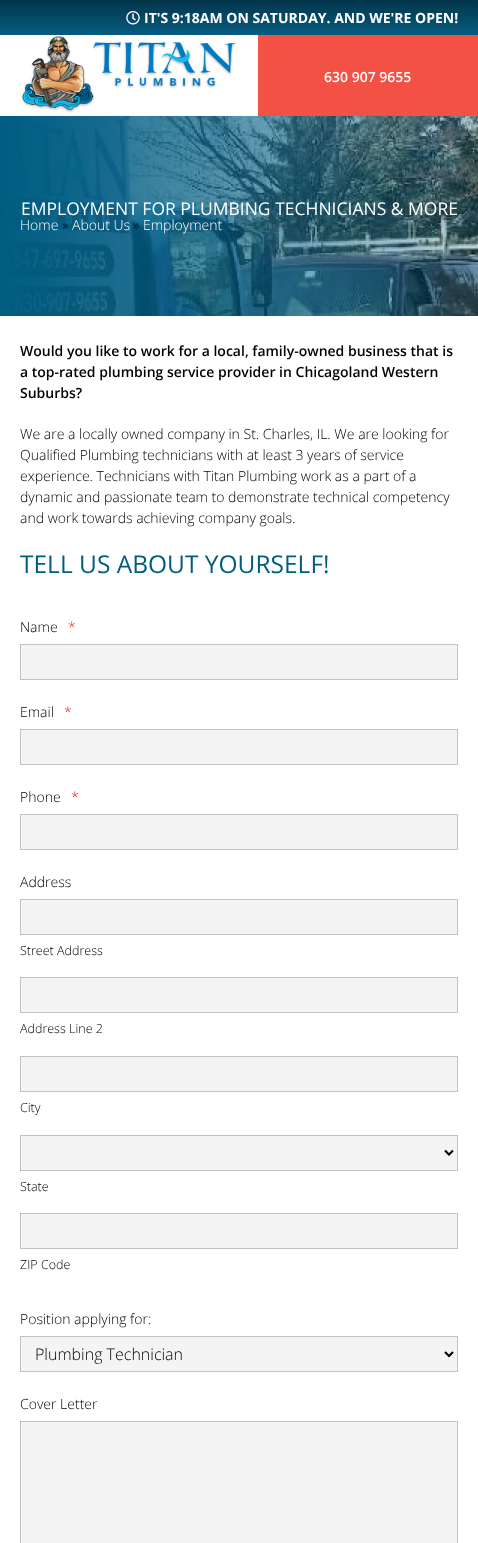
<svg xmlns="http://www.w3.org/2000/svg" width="478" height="1543">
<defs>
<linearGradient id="g1" gradientUnits="userSpaceOnUse" x1="239" y1="0" x2="239" y2="35"><stop offset="0" stop-color="#02354a"/><stop offset="1" stop-color="#065c80"/></linearGradient>
</defs>
<rect width="100%" height="100%" fill="#fff"/>
<rect width="478" height="35" fill="url(#g1)"/>
<image x="126" y="11" width="14" height="14" href="media/1.png"/>
<text x="144" y="23" style="font-family:Open Sans;font-size:14px;font-weight:bold;fill:#fff">IT'S 9:18AM ON SATURDAY. AND WE'RE OPEN!</text>
<image x="21" y="36" width="215" height="77" href="media/2.png"/>
<rect x="258" y="35" width="220" height="81" fill="#f35143"/>
<text x="324" y="82" style="font-family:Open Sans;font-size:14px;font-weight:600;fill:#fff">630 907 9655</text>
<image x="0" y="116" width="478" height="200" href="media/3.png"/>
<text x="21" y="215" style="font-family:Open Sans;font-size:17.5px;fill:#fff">EMPLOYMENT FOR PLUMBING TECHNICIANS &amp; MORE</text>
<text x="20" y="230" style="font-family:Open Sans;font-size:14px;font-weight:300;fill:#fff">Home</text>
<text x="62" y="230" style="font-family:Open Sans;font-size:14px;font-weight:300;fill:#000">»</text>
<text x="72" y="230" style="font-family:Open Sans;font-size:14px;font-weight:300;fill:#fff">About Us</text>
<text x="133" y="230" style="font-family:Open Sans;font-size:14px;font-weight:300;fill:#000">»</text>
<text x="143" y="230" style="font-family:Open Sans;font-size:14px;font-weight:300;fill:#fff">Employment</text>
<text x="20" y="356" style="font-family:Open Sans;font-size:14px;font-weight:600;fill:#000">Would you like to work for a local, family-owned business that is</text>
<text x="20" y="377" style="font-family:Open Sans;font-size:14px;font-weight:600;fill:#000">a top-rated plumbing service provider in Chicagoland Western</text>
<text x="20" y="398" style="font-family:Open Sans;font-size:14px;font-weight:600;fill:#000">Suburbs?</text>
<text x="20" y="439" style="font-family:Open Sans;font-size:14px;font-weight:300;fill:#000">We are a locally owned company in St. Charles, IL. We are looking for</text>
<text x="20" y="460" style="font-family:Open Sans;font-size:14px;font-weight:300;fill:#000">Qualified Plumbing technicians with at least 3 years of service</text>
<text x="20" y="481" style="font-family:Open Sans;font-size:14px;font-weight:300;fill:#000">experience. Technicians with Titan Plumbing work as a part of a</text>
<text x="20" y="502" style="font-family:Open Sans;font-size:14px;font-weight:300;fill:#000">dynamic and passionate team to demonstrate technical competency</text>
<text x="20" y="523" style="font-family:Open Sans;font-size:14px;font-weight:300;fill:#000">and work towards achieving company goals.</text>
<text x="20" y="573" style="font-family:Open Sans;font-size:24.5px;fill:#005d82">TELL US ABOUT YOURSELF!</text>
<text x="20" y="632" style="font-family:Open Sans;font-size:14px;font-weight:300;fill:#000">Name</text>
<text x="68" y="632" style="font-family:Open Sans;font-size:14px;font-weight:300;fill:#f00">*</text>
<rect x="20.5" y="644.5" width="437" height="35" fill="#f4f4f4" stroke="#c1c1c1"/>
<text x="20" y="717" style="font-family:Open Sans;font-size:14px;font-weight:300;fill:#000">Email</text>
<text x="64" y="717" style="font-family:Open Sans;font-size:14px;font-weight:300;fill:#f00">*</text>
<rect x="20.5" y="729.5" width="437" height="35" fill="#f4f4f4" stroke="#c1c1c1"/>
<text x="20" y="802" style="font-family:Open Sans;font-size:14px;font-weight:300;fill:#000">Phone</text>
<text x="71" y="802" style="font-family:Open Sans;font-size:14px;font-weight:300;fill:#f00">*</text>
<rect x="20.5" y="814.5" width="437" height="35" fill="#f4f4f4" stroke="#c1c1c1"/>
<text x="20" y="887" style="font-family:Open Sans;font-size:14px;font-weight:300;fill:#000">Address</text>
<rect x="20.5" y="899.5" width="437" height="35" fill="#f4f4f4" stroke="#c1c1c1"/>
<text x="20" y="955" style="font-family:Open Sans;font-size:12.5px;font-weight:300;fill:#000">Street Address</text>
<rect x="20.5" y="977.5" width="437" height="35" fill="#f4f4f4" stroke="#c1c1c1"/>
<text x="20" y="1033" style="font-family:Open Sans;font-size:12.5px;font-weight:300;fill:#000">Address Line 2</text>
<rect x="20.5" y="1056.5" width="437" height="35" fill="#f4f4f4" stroke="#c1c1c1"/>
<text x="20" y="1112" style="font-family:Open Sans;font-size:12.5px;font-weight:300;fill:#000">City</text>
<rect x="20.5" y="1135.5" width="437" height="35" fill="#f4f4f4" stroke="#c1c1c1"/>
<path d="M445 1150.5l4 4l4-4" fill="none" stroke="#000" stroke-width="2"/>
<text x="20" y="1191" style="font-family:Open Sans;font-size:12.5px;font-weight:300;fill:#000">State</text>
<rect x="20.5" y="1213.5" width="437" height="35" fill="#f4f4f4" stroke="#c1c1c1"/>
<text x="20" y="1269" style="font-family:Open Sans;font-size:12.5px;font-weight:300;fill:#000">ZIP Code</text>
<text x="20" y="1324" style="font-family:Open Sans;font-size:14px;font-weight:300;fill:#000">Position applying for:</text>
<rect x="20.5" y="1336.5" width="437" height="35" fill="#f4f4f4" stroke="#c1c1c1"/>
<path d="M445 1352l4 4l4-4" fill="none" stroke="#000" stroke-width="2"/>
<text x="35" y="1360" style="font-family:Open Sans;font-size:16px;font-weight:300;fill:#000">Plumbing Technician</text>
<text x="20" y="1409" style="font-family:Open Sans;font-size:14px;font-weight:300;fill:#000">Cover Letter</text>
<rect x="20.5" y="1421.5" width="437" height="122" fill="#f4f4f4" stroke="#c1c1c1"/>
</svg>
